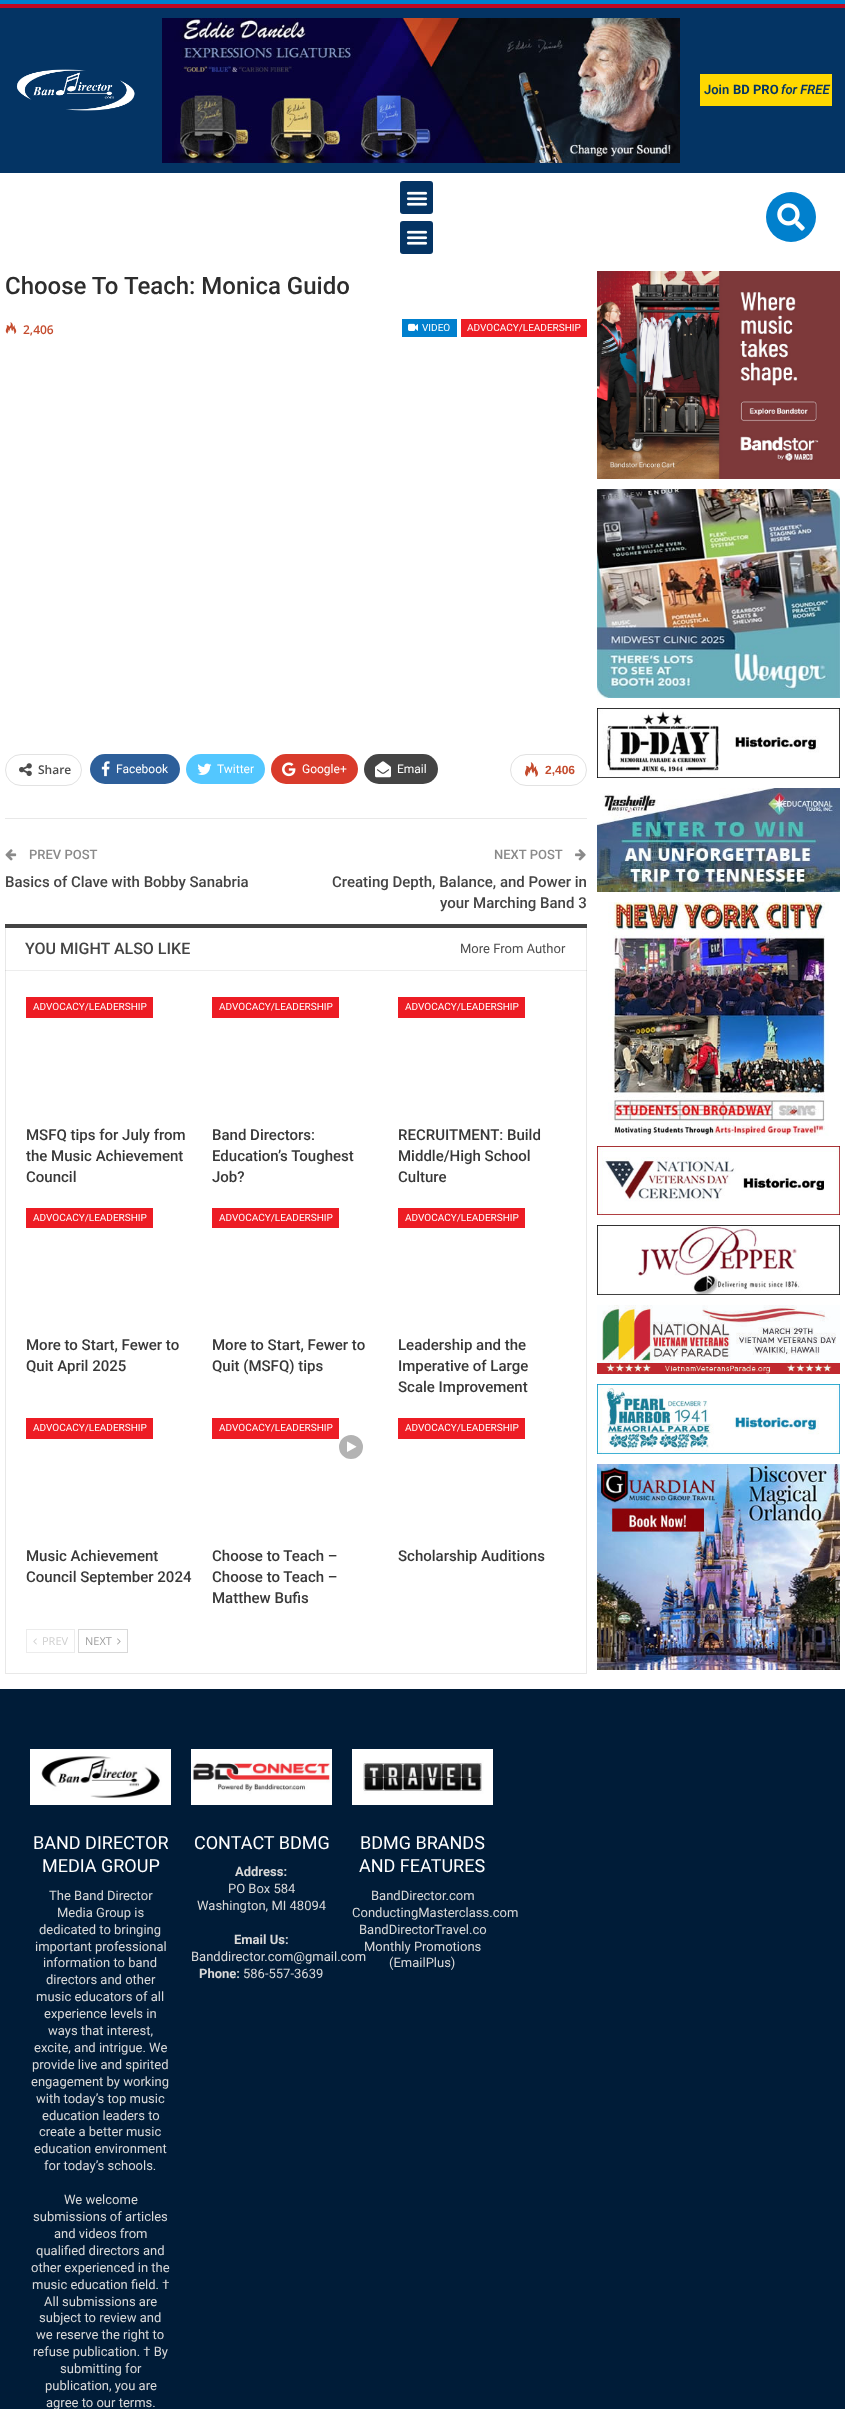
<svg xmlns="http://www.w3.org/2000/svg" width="845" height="2409">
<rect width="100%" height="100%" fill="#fff"/>
<rect width="845" height="4" fill="#0080ce"/>
<rect y="8" width="845" height="165" fill="#043464"/>
<rect y="4" width="845" height="4" fill="#c10923"/>
<image x="16" y="69" width="119" height="42" href="media/1.png"/>
<image x="162" y="18" width="518" height="145" href="media/2.png"/>
<rect x="700" y="74" width="132" height="32" fill="#ffd800"/>
<text x="704" y="94" style="font-family:Roboto;font-size:13px;font-weight:600;fill:#043464">Join</text>
<text x="733" y="94" style="font-family:Roboto;font-size:13px;font-weight:bold;fill:#043464">BD PRO</text>
<text x="781" y="94" style="font-family:Roboto;font-size:13px;font-weight:600;font-style:italic;fill:#043464">for FREE</text>
<rect x="400" y="181" width="33" height="33" rx="3" fill="#043464"/>
<image x="406" y="191" width="22" height="15" href="media/3.png"/>
<rect x="400" y="221" width="33" height="33" rx="3" fill="#043464"/>
<image x="406" y="230" width="22" height="15" href="media/3.png"/>
<circle cx="791" cy="217" r="25" fill="#0180cd"/>
<image x="777" y="203" width="28" height="28" href="media/4.png"/>
<text x="5" y="294" style="font-family:Roboto;font-size:24px;font-weight:500;fill:#2d2d2d">Choose To Teach: Monica Guido</text>
<image x="5" y="322" width="12" height="12" href="media/5.png"/>
<text x="23" y="334" style="font-family:Open Sans;font-size:12px;font-weight:600;fill:#c44b2d">2,406</text>
<rect x="402" y="319" width="55" height="18" fill="#0080ce"/>
<image x="408" y="323" width="10" height="8" href="media/6.png"/>
<text x="422" y="331" style="font-family:Roboto;font-size:10px;fill:#fff">VIDEO</text>
<rect x="461" y="319" width="126" height="18" fill="#ed1c24"/>
<text x="467" y="331" style="font-family:Roboto;font-size:10px;fill:#fff">ADVOCACY/LEADERSHIP</text>
<rect x="5.5" y="754.5" width="76" height="31" rx="15.5" fill="none" stroke="#e2e2e2"/>
<image x="19" y="763" width="13" height="14" href="media/7.png"/>
<text x="38" y="774" style="font-family:Open Sans;font-size:12px;font-weight:600;fill:#4d4d4d">Share</text>
<rect x="90" y="754" width="90" height="30" rx="15" fill="#2d5f9a"/>
<image x="101" y="761" width="9" height="16" href="media/8.png"/>
<text x="116" y="773" style="font-family:Roboto;font-size:12px;fill:#fff">Facebook</text>
<rect x="186" y="754" width="79" height="30" rx="15" fill="#53c7ff"/>
<image x="197" y="763" width="15" height="12" href="media/9.png"/>
<text x="217" y="773" style="font-family:Roboto;font-size:12px;fill:#fff">Twitter</text>
<rect x="271" y="754" width="87" height="30" rx="15" fill="#d93b2b"/>
<image x="282" y="762" width="14" height="15" href="media/10.png"/>
<text x="302" y="773" style="font-family:Roboto;font-size:12px;fill:#fff">Google+</text>
<rect x="364" y="754" width="74" height="30" rx="15" fill="#444"/>
<image x="375" y="761" width="16" height="17" href="media/11.png"/>
<text x="397" y="773" style="font-family:Roboto;font-size:12px;fill:#fff">Email</text>
<rect x="510.5" y="754.5" width="76" height="31" rx="15.5" fill="none" stroke="#e2e2e2"/>
<image x="525" y="762" width="13" height="15" href="media/12.png"/>
<text x="545" y="774" style="font-family:Liberation Sans;font-size:12px;font-weight:bold;fill:#c44b2d">2,406</text>
<rect x="5" y="818" width="582" height="1" fill="#e8e8e8"/>
<image x="5" y="849" width="12" height="12" href="media/13.png"/>
<text x="29" y="859" style="font-family:Roboto;font-size:13px;font-weight:500;fill:#8a8a8a">PREV POST</text>
<text x="5" y="887" style="font-family:Roboto;font-size:15px;font-weight:500;fill:#444">Basics of Clave with Bobby Sanabria</text>
<text x="494" y="859" style="font-family:Roboto;font-size:13px;font-weight:500;fill:#8a8a8a">NEXT POST</text>
<image x="575" y="849" width="11" height="12" href="media/14.png"/>
<text x="332" y="887" style="font-family:Roboto;font-size:15px;font-weight:500;fill:#444">Creating Depth, Balance, and Power in</text>
<text x="440" y="908" style="font-family:Roboto;font-size:15px;font-weight:500;fill:#444">your Marching Band 3</text>
<rect x="5.5" y="924.5" width="581" height="749" fill="none" stroke="#e8e8e8"/>
<rect x="5" y="924" width="582" height="4" fill="#444"/>
<text x="25" y="954" style="font-family:Roboto;font-size:16px;font-weight:500;fill:#444">YOU MIGHT ALSO LIKE</text>
<text x="460" y="953" style="font-family:Roboto;font-size:13px;fill:#4d4d4d">More From Author</text>
<rect x="5" y="970" width="582" height="1" fill="#00000012"/>
<rect x="26" y="997" width="127" height="21" fill="#ed1c24"/>
<text x="33" y="1010" style="font-family:Roboto;font-size:10px;fill:#fff">ADVOCACY/LEADERSHIP</text>
<text x="26" y="1140" style="font-family:Roboto;font-size:15px;font-weight:500;fill:#383838">MSFQ tips for July from</text>
<text x="26" y="1161" style="font-family:Roboto;font-size:15px;font-weight:500;fill:#383838">the Music Achievement</text>
<text x="26" y="1182" style="font-family:Roboto;font-size:15px;font-weight:500;fill:#383838">Council</text>
<rect x="212" y="997" width="127" height="21" fill="#ed1c24"/>
<text x="219" y="1010" style="font-family:Roboto;font-size:10px;fill:#fff">ADVOCACY/LEADERSHIP</text>
<text x="212" y="1140" style="font-family:Roboto;font-size:15px;font-weight:500;fill:#383838">Band Directors:</text>
<text x="212" y="1161" style="font-family:Roboto;font-size:15px;font-weight:500;fill:#383838">Education’s Toughest</text>
<text x="212" y="1182" style="font-family:Roboto;font-size:15px;font-weight:500;fill:#383838">Job?</text>
<rect x="398" y="997" width="127" height="21" fill="#ed1c24"/>
<text x="405" y="1010" style="font-family:Roboto;font-size:10px;fill:#fff">ADVOCACY/LEADERSHIP</text>
<text x="398" y="1140" style="font-family:Roboto;font-size:15px;font-weight:500;fill:#383838">RECRUITMENT: Build</text>
<text x="398" y="1161" style="font-family:Roboto;font-size:15px;font-weight:500;fill:#383838">Middle/High School</text>
<text x="398" y="1182" style="font-family:Roboto;font-size:15px;font-weight:500;fill:#383838">Culture</text>
<rect x="26" y="1208" width="127" height="20" fill="#ed1c24"/>
<text x="33" y="1221" style="font-family:Roboto;font-size:10px;fill:#fff">ADVOCACY/LEADERSHIP</text>
<text x="26" y="1350" style="font-family:Roboto;font-size:15px;font-weight:500;fill:#383838">More to Start, Fewer to</text>
<text x="26" y="1371" style="font-family:Roboto;font-size:15px;font-weight:500;fill:#383838">Quit April 2025</text>
<rect x="212" y="1208" width="127" height="20" fill="#ed1c24"/>
<text x="219" y="1221" style="font-family:Roboto;font-size:10px;fill:#fff">ADVOCACY/LEADERSHIP</text>
<text x="212" y="1350" style="font-family:Roboto;font-size:15px;font-weight:500;fill:#383838">More to Start, Fewer to</text>
<text x="212" y="1371" style="font-family:Roboto;font-size:15px;font-weight:500;fill:#383838">Quit (MSFQ) tips</text>
<rect x="398" y="1208" width="127" height="20" fill="#ed1c24"/>
<text x="405" y="1221" style="font-family:Roboto;font-size:10px;fill:#fff">ADVOCACY/LEADERSHIP</text>
<text x="398" y="1350" style="font-family:Roboto;font-size:15px;font-weight:500;fill:#383838">Leadership and the</text>
<text x="398" y="1371" style="font-family:Roboto;font-size:15px;font-weight:500;fill:#383838">Imperative of Large</text>
<text x="398" y="1392" style="font-family:Roboto;font-size:15px;font-weight:500;fill:#383838">Scale Improvement</text>
<rect x="26" y="1418" width="127" height="21" fill="#ed1c24"/>
<text x="33" y="1431" style="font-family:Roboto;font-size:10px;fill:#fff">ADVOCACY/LEADERSHIP</text>
<text x="26" y="1561" style="font-family:Roboto;font-size:15px;font-weight:500;fill:#383838">Music Achievement</text>
<text x="26" y="1582" style="font-family:Roboto;font-size:15px;font-weight:500;fill:#383838">Council September 2024</text>
<circle cx="351" cy="1447" r="13" fill="#b3b3b3" stroke="#fff" stroke-width="2"/>
<rect x="212" y="1418" width="127" height="21" fill="#ed1c24"/>
<text x="219" y="1431" style="font-family:Roboto;font-size:10px;fill:#fff">ADVOCACY/LEADERSHIP</text>
<image x="347" y="1441" width="10" height="11" href="media/15.png"/>
<text x="212" y="1561" style="font-family:Roboto;font-size:15px;font-weight:500;fill:#383838">Choose to Teach –</text>
<text x="212" y="1582" style="font-family:Roboto;font-size:15px;font-weight:500;fill:#383838">Choose to Teach –</text>
<text x="212" y="1603" style="font-family:Roboto;font-size:15px;font-weight:500;fill:#383838">Matthew Bufis</text>
<rect x="398" y="1418" width="127" height="21" fill="#ed1c24"/>
<text x="405" y="1431" style="font-family:Roboto;font-size:10px;fill:#fff">ADVOCACY/LEADERSHIP</text>
<text x="398" y="1561" style="font-family:Roboto;font-size:15px;font-weight:500;fill:#383838">Scholarship Auditions</text>
<rect x="26.5" y="1629.5" width="48" height="23" fill="none" stroke="#ececec"/>
<image x="33" y="1638" width="4" height="7" href="media/16.png"/>
<text x="42" y="1645" style="font-family:Open Sans;font-size:11px;fill:#cfcfcf">PREV</text>
<rect x="78.5" y="1629.5" width="49" height="23" fill="none" stroke="#d8d8d8"/>
<text x="85" y="1645" style="font-family:Open Sans;font-size:11px;fill:#9e9e9e">NEXT</text>
<image x="117" y="1638" width="4" height="7" href="media/17.png"/>
<image x="597" y="271" width="243" height="208" href="media/18.png"/>
<image x="597" y="489" width="243" height="209" href="media/19.png"/>
<image x="597" y="708" width="243" height="70" href="media/20.png"/>
<image x="597" y="788" width="243" height="104" href="media/21.png"/>
<image x="608" y="902" width="221" height="234" href="media/22.png"/>
<image x="597" y="1146" width="243" height="69" href="media/23.png"/>
<image x="597" y="1225" width="243" height="70" href="media/24.png"/>
<image x="597" y="1305" width="243" height="69" href="media/25.png"/>
<image x="597" y="1384" width="243" height="70" href="media/26.png"/>
<image x="597" y="1464" width="243" height="206" href="media/27.png"/>
<rect y="1689" width="845" height="720" fill="#001c38"/>
<image x="30" y="1749" width="141" height="56" href="media/28.png"/>
<text x="33" y="1849" style="font-family:Roboto;font-size:18px;fill:#fff">BAND DIRECTOR</text>
<text x="42" y="1872" style="font-family:Roboto;font-size:18px;fill:#fff">MEDIA GROUP</text>
<text x="49" y="1900" style="font-family:Roboto;font-size:13px;fill:#d9d9d9">The Band Director</text>
<text x="57" y="1917" style="font-family:Roboto;font-size:13px;fill:#d9d9d9">Media Group is</text>
<text x="39" y="1934" style="font-family:Roboto;font-size:13px;fill:#d9d9d9">dedicated to bringing</text>
<text x="35" y="1951" style="font-family:Roboto;font-size:13px;fill:#d9d9d9">important professional</text>
<text x="43" y="1967" style="font-family:Roboto;font-size:13px;fill:#d9d9d9">information to band</text>
<text x="46" y="1984" style="font-family:Roboto;font-size:13px;fill:#d9d9d9">directors and other</text>
<text x="36" y="2001" style="font-family:Roboto;font-size:13px;fill:#d9d9d9">music educators of all</text>
<text x="44" y="2018" style="font-family:Roboto;font-size:13px;fill:#d9d9d9">experience levels in</text>
<text x="48" y="2035" style="font-family:Roboto;font-size:13px;fill:#d9d9d9">ways that interest,</text>
<text x="34" y="2052" style="font-family:Roboto;font-size:13px;fill:#d9d9d9">excite, and intrigue. We</text>
<text x="32" y="2069" style="font-family:Roboto;font-size:13px;fill:#d9d9d9">provide live and spirited</text>
<text x="31" y="2086" style="font-family:Roboto;font-size:13px;fill:#d9d9d9">engagement by working</text>
<text x="36" y="2103" style="font-family:Roboto;font-size:13px;fill:#d9d9d9">with today’s top music</text>
<text x="42" y="2120" style="font-family:Roboto;font-size:13px;fill:#d9d9d9">education leaders to</text>
<text x="39" y="2136" style="font-family:Roboto;font-size:13px;fill:#d9d9d9">create a better music</text>
<text x="34" y="2153" style="font-family:Roboto;font-size:13px;fill:#d9d9d9">education environment</text>
<text x="44" y="2170" style="font-family:Roboto;font-size:13px;fill:#d9d9d9">for today’s schools.</text>
<text x="64" y="2204" style="font-family:Roboto;font-size:13px;fill:#d9d9d9">We welcome</text>
<text x="33" y="2221" style="font-family:Roboto;font-size:13px;fill:#d9d9d9">submissions of articles</text>
<text x="54" y="2238" style="font-family:Roboto;font-size:13px;fill:#d9d9d9">and videos from</text>
<text x="36" y="2255" style="font-family:Roboto;font-size:13px;fill:#d9d9d9">qualified directors and</text>
<text x="31" y="2272" style="font-family:Roboto;font-size:13px;fill:#d9d9d9">other experienced in the</text>
<text x="32" y="2289" style="font-family:Roboto;font-size:13px;fill:#d9d9d9">music education field. †</text>
<text x="44" y="2306" style="font-family:Roboto;font-size:13px;fill:#d9d9d9">All submissions are</text>
<text x="39" y="2322" style="font-family:Roboto;font-size:13px;fill:#d9d9d9">subject to review and</text>
<text x="36" y="2339" style="font-family:Roboto;font-size:13px;fill:#d9d9d9">we reserve the right to</text>
<text x="33" y="2356" style="font-family:Roboto;font-size:13px;fill:#d9d9d9">refuse publication. † By</text>
<text x="60" y="2373" style="font-family:Roboto;font-size:13px;fill:#d9d9d9">submitting for</text>
<text x="45" y="2390" style="font-family:Roboto;font-size:13px;fill:#d9d9d9">publication, you are</text>
<text x="46" y="2407" style="font-family:Roboto;font-size:13px;fill:#d9d9d9">agree to our terms.</text>
<image x="191" y="1749" width="141" height="56" href="media/29.png"/>
<text x="194" y="1849" style="font-family:Roboto;font-size:18px;fill:#fff">CONTACT BDMG</text>
<text x="235" y="1876" style="font-family:Roboto;font-size:13px;font-weight:bold;fill:#d9d9d9">Address:</text>
<text x="228" y="1893" style="font-family:Roboto;font-size:13px;fill:#d9d9d9">PO Box 584</text>
<text x="197" y="1910" style="font-family:Roboto;font-size:13px;fill:#d9d9d9">Washington, MI 48094</text>
<text x="234" y="1944" style="font-family:Roboto;font-size:13px;font-weight:bold;fill:#d9d9d9">Email Us:</text>
<text x="191" y="1961" style="font-family:Roboto;font-size:13px;fill:#d9d9d9">Banddirector.com@gmail.com</text>
<text x="199" y="1978" style="font-family:Roboto;font-size:13px;font-weight:bold;fill:#d9d9d9">Phone:</text>
<text x="243" y="1978" style="font-family:Roboto;font-size:13px;fill:#d9d9d9">586-557-3639</text>
<image x="352" y="1749" width="141" height="56" href="media/30.png"/>
<text x="360" y="1849" style="font-family:Roboto;font-size:18px;fill:#fff">BDMG BRANDS</text>
<text x="359" y="1872" style="font-family:Roboto;font-size:18px;fill:#fff">AND FEATURES</text>
<text x="371" y="1900" style="font-family:Roboto;font-size:13px;fill:#d9d9d9">BandDirector.com</text>
<text x="352" y="1917" style="font-family:Roboto;font-size:13px;fill:#d9d9d9">ConductingMasterclass.com</text>
<text x="359" y="1934" style="font-family:Roboto;font-size:13px;fill:#d9d9d9">BandDirectorTravel.co</text>
<text x="364" y="1951" style="font-family:Roboto;font-size:13px;fill:#d9d9d9">Monthly Promotions</text>
<text x="389" y="1967" style="font-family:Roboto;font-size:13px;fill:#d9d9d9">(EmailPlus)</text>
</svg>
